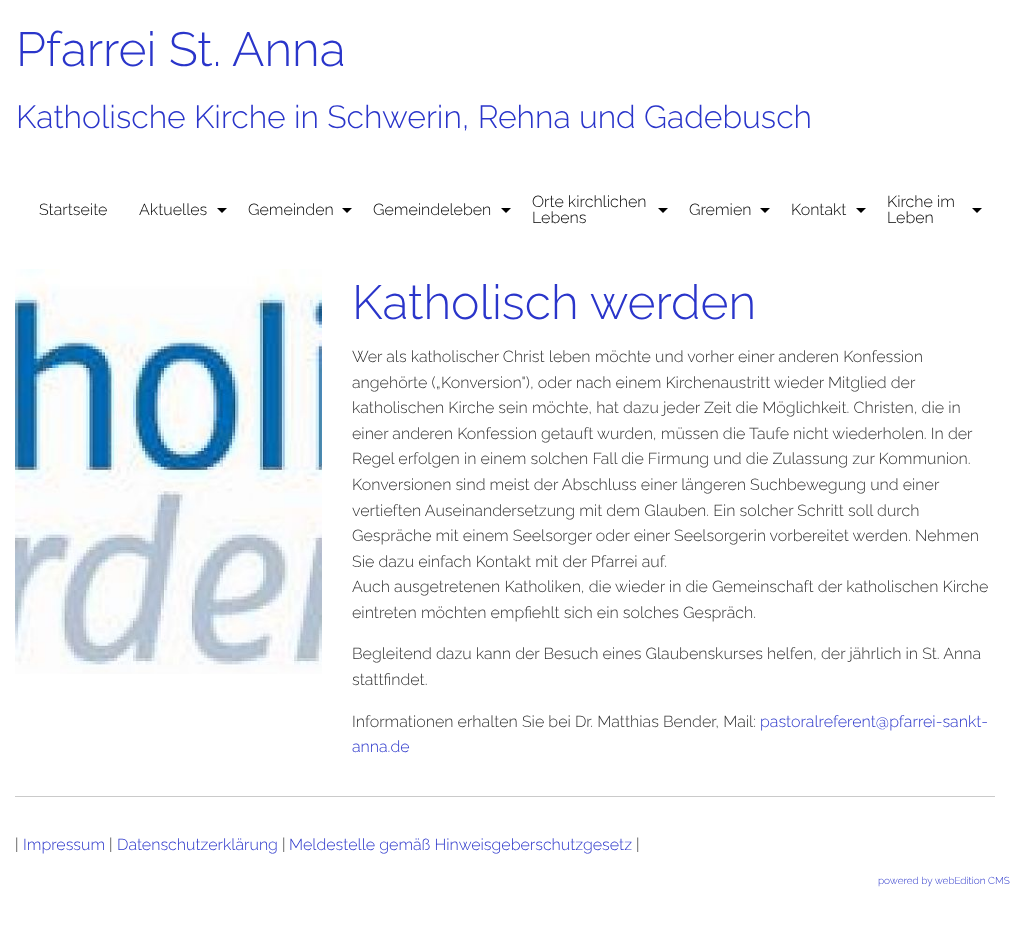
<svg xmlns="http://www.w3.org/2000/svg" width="1010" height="937">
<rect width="100%" height="100%" fill="#fff"/>
<text x="16" y="66" style="font-family:Raleway;font-size:48px;font-weight:300;fill:#2a35ca">Pfarrei St. Anna</text>
<text x="16" y="128" style="font-family:Raleway;font-size:32px;font-weight:300;fill:#2a35ca">Katholische Kirche in Schwerin, Rehna und Gadebusch</text>
<text x="39" y="215" style="font-family:Raleway;font-size:16px;font-weight:300;fill:#000">Startseite</text>
<text x="139" y="215" style="font-family:Raleway;font-size:16px;font-weight:300;fill:#000">Aktuelles</text>
<path d="M217 208h10l-5 5z" fill="#000"/>
<text x="248" y="215" style="font-family:Raleway;font-size:16px;font-weight:300;fill:#000">Gemeinden</text>
<path d="M342 208h10l-5 5z" fill="#000"/>
<text x="373" y="215" style="font-family:Raleway;font-size:16px;font-weight:300;fill:#000">Gemeindeleben</text>
<path d="M501 208h10l-5 5z" fill="#000"/>
<text x="532" y="207" style="font-family:Raleway;font-size:16px;font-weight:300;fill:#000">Orte kirchlichen</text>
<path d="M658 208h10l-5 5z" fill="#000"/>
<text x="532" y="223" style="font-family:Raleway;font-size:16px;font-weight:300;fill:#000">Lebens</text>
<text x="689" y="215" style="font-family:Raleway;font-size:16px;font-weight:300;fill:#000">Gremien</text>
<path d="M760 208h10l-5 5z" fill="#000"/>
<text x="791" y="215" style="font-family:Raleway;font-size:16px;font-weight:300;fill:#000">Kontakt</text>
<path d="M856 208h10l-5 5z" fill="#000"/>
<text x="887" y="207" style="font-family:Raleway;font-size:16px;font-weight:300;fill:#000">Kirche im</text>
<path d="M972 208h10l-5 5z" fill="#000"/>
<text x="887" y="223" style="font-family:Raleway;font-size:16px;font-weight:300;fill:#000">Leben</text>
<image x="15" y="269" width="307" height="405" href="media/1.png"/>
<text x="352" y="319" style="font-family:Raleway;font-size:48px;font-weight:300;fill:#2a35ca">Katholisch werden</text>
<text x="352" y="362" style="font-family:Raleway;font-size:16px;font-weight:300;fill:#323232">Wer als katholischer Christ leben möchte und vorher einer anderen Konfession</text>
<text x="352" y="388" style="font-family:Raleway;font-size:16px;font-weight:300;fill:#323232">angehörte („Konversion"), oder nach einem Kirchenaustritt wieder Mitglied der</text>
<text x="352" y="413" style="font-family:Raleway;font-size:16px;font-weight:300;fill:#323232">katholischen Kirche sein möchte, hat dazu jeder Zeit die Möglichkeit. Christen, die in</text>
<text x="352" y="439" style="font-family:Raleway;font-size:16px;font-weight:300;fill:#323232">einer anderen Konfession getauft wurden, müssen die Taufe nicht wiederholen. In der</text>
<text x="352" y="464" style="font-family:Raleway;font-size:16px;font-weight:300;fill:#323232">Regel erfolgen in einem solchen Fall die Firmung und die Zulassung zur Kommunion.</text>
<text x="352" y="490" style="font-family:Raleway;font-size:16px;font-weight:300;fill:#323232">Konversionen sind meist der Abschluss einer längeren Suchbewegung und einer</text>
<text x="352" y="516" style="font-family:Raleway;font-size:16px;font-weight:300;fill:#323232">vertieften Auseinandersetzung mit dem Glauben. Ein solcher Schritt soll durch</text>
<text x="352" y="541" style="font-family:Raleway;font-size:16px;font-weight:300;fill:#323232">Gespräche mit einem Seelsorger oder einer Seelsorgerin vorbereitet werden. Nehmen</text>
<text x="352" y="567" style="font-family:Raleway;font-size:16px;font-weight:300;fill:#323232">Sie dazu einfach Kontakt mit der Pfarrei auf.</text>
<text x="352" y="592" style="font-family:Raleway;font-size:16px;font-weight:300;fill:#323232">Auch ausgetretenen Katholiken, die wieder in die Gemeinschaft der katholischen Kirche</text>
<text x="352" y="618" style="font-family:Raleway;font-size:16px;font-weight:300;fill:#323232">eintreten möchten empfiehlt sich ein solches Gespräch.</text>
<text x="352" y="659" style="font-family:Raleway;font-size:16px;font-weight:300;fill:#323232">Begleitend dazu kann der Besuch eines Glaubenskurses helfen, der jährlich in St. Anna</text>
<text x="352" y="685" style="font-family:Raleway;font-size:16px;font-weight:300;fill:#323232">stattfindet.</text>
<text x="352" y="727" style="font-family:Raleway;font-size:16px;font-weight:300;fill:#323232">Informationen erhalten Sie bei Dr. Matthias Bender, Mail:</text>
<text x="760" y="727" style="font-family:Raleway;font-size:16px;font-weight:300;fill:#2a35ca">pastoralreferent@pfarrei-sankt-</text>
<text x="352" y="752" style="font-family:Raleway;font-size:16px;font-weight:300;fill:#2a35ca">anna.de</text>
<rect x="15" y="796" width="980" height="1" fill="#cacaca"/>
<text x="15" y="850" style="font-family:Raleway;font-size:16px;font-weight:300;fill:#323232">|</text>
<text x="23" y="850" style="font-family:Raleway;font-size:16px;font-weight:300;fill:#2a35ca">Impressum</text>
<text x="109" y="850" style="font-family:Raleway;font-size:16px;font-weight:300;fill:#323232">|</text>
<text x="117" y="850" style="font-family:Raleway;font-size:16px;font-weight:300;fill:#2a35ca">Datenschutzerklärung</text>
<text x="282" y="850" style="font-family:Raleway;font-size:16px;font-weight:300;fill:#323232">|</text>
<text x="289" y="850" style="font-family:Raleway;font-size:16px;font-weight:300;fill:#2a35ca">Meldestelle gemäß Hinweisgeberschutzgesetz</text>
<text x="636" y="850" style="font-family:Raleway;font-size:16px;font-weight:300;fill:#323232">|</text>
<text x="878" y="884" style="font-family:Raleway;font-size:10px;font-weight:300;fill:#2a35ca">powered by webEdition CMS</text>
</svg>
